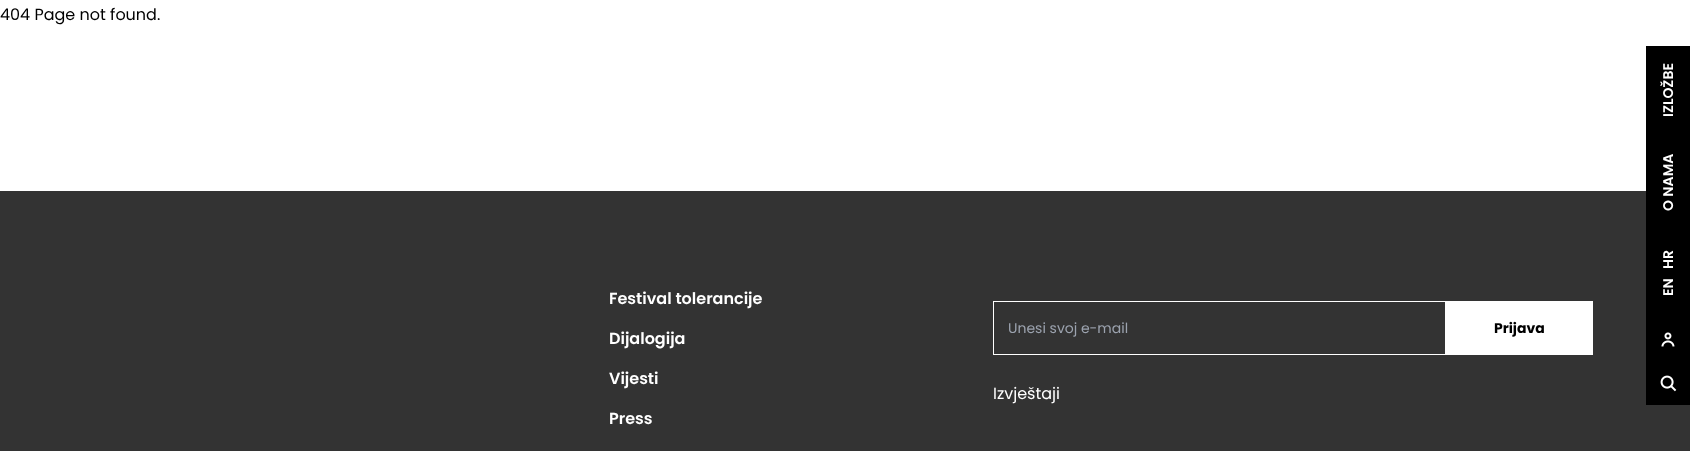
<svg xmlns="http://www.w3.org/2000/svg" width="1690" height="451">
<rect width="100%" height="100%" fill="#fff"/>
<text x="0" y="20" style="font-family:Poppins;font-size:16px;fill:#000">404 Page not found.</text>
<rect y="191" width="1690" height="260" fill="#333"/>
<rect x="1646" y="46" width="44" height="359" fill="#000"/>
<text x="1673" y="117" transform="rotate(-90 1673 117)" style="font-family:Poppins;font-size:14px;font-weight:600;fill:#fff">IZLOŽBE</text>
<text x="1673" y="211" transform="rotate(-90 1673 211)" style="font-family:Poppins;font-size:14px;font-weight:600;fill:#fff">O NAMA</text>
<text x="1673" y="269" transform="rotate(-90 1673 269)" style="font-family:Poppins;font-size:14px;font-weight:600;fill:#fff">HR</text>
<text x="1673" y="296" transform="rotate(-90 1673 296)" style="font-family:Poppins;font-size:14px;font-weight:600;fill:#fff">EN</text>
<image x="1661" y="332" width="14" height="15" href="media/1.png"/>
<image x="1660" y="375" width="17" height="17" href="media/2.png"/>
<text x="609" y="304" style="font-family:Poppins;font-size:16px;font-weight:600;fill:#fff">Festival tolerancije</text>
<text x="609" y="344" style="font-family:Poppins;font-size:16px;font-weight:600;fill:#fff">Dijalogija</text>
<text x="609" y="384" style="font-family:Poppins;font-size:16px;font-weight:600;fill:#fff">Vijesti</text>
<text x="609" y="424" style="font-family:Poppins;font-size:16px;font-weight:600;fill:#fff">Press</text>
<rect x="993.5" y="301.5" width="452" height="53" fill="none" stroke="#fff"/>
<text x="1008" y="333" style="font-family:Poppins;font-size:14px;fill:#9ca3af">Unesi svoj e-mail</text>
<rect x="1446" y="301" width="147" height="54" fill="#fff"/>
<text x="1494" y="333" style="font-family:Poppins;font-size:14px;font-weight:bold;fill:#000">Prijava</text>
<text x="993" y="399" style="font-family:Poppins;font-size:16px;fill:#fff">Izvještaji</text>
</svg>
